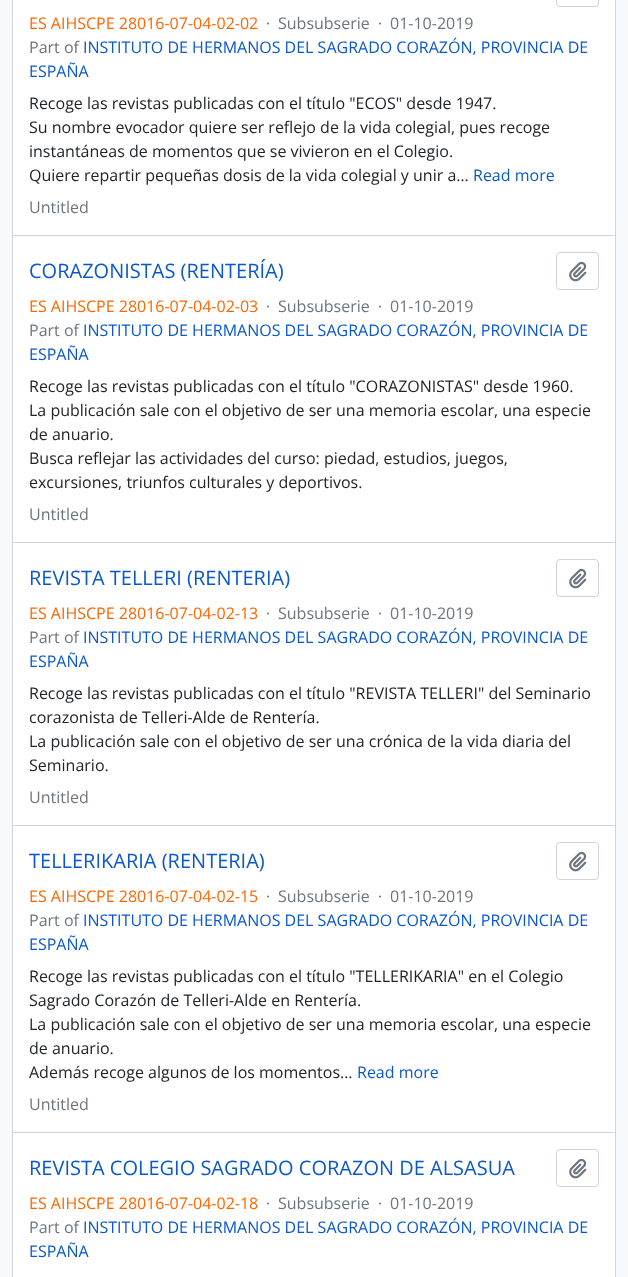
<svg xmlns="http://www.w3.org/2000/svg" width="628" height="1277">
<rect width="100%" height="100%" fill="#f8f9fa"/>
<rect x="12.5" y="-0.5" width="603" height="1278" fill="#fff" stroke="#ced4da"/>
<rect x="13" y="235" width="602" height="1" fill="#ced4da"/>
<rect x="556.5" y="-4.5" width="42" height="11" rx="3.5" fill="none" stroke="#ced4da"/>
<text x="29" y="29" style="font-family:Open Sans;font-size:16px;fill:#f60">ES AIHSCPE 28016-07-04-02-02</text>
<text x="266" y="29" style="font-family:Open Sans;font-size:16px;fill:#6c757d">·</text>
<text x="278" y="29" style="font-family:Open Sans;font-size:16px;fill:#6c757d">Subsubserie</text>
<text x="378" y="29" style="font-family:Open Sans;font-size:16px;fill:#6c757d">·</text>
<text x="390" y="29" style="font-family:Open Sans;font-size:16px;fill:#6c757d">01-10-2019</text>
<text x="29" y="53" style="font-family:Open Sans;font-size:16px;fill:#6c757d">Part of</text>
<text x="83" y="53" style="font-family:Open Sans;font-size:16px;fill:#0a58ca">INSTITUTO DE HERMANOS DEL SAGRADO CORAZÓN, PROVINCIA DE</text>
<text x="29" y="77" style="font-family:Open Sans;font-size:16px;fill:#0a58ca">ESPAÑA</text>
<text x="29" y="109" style="font-family:Open Sans;font-size:16px;fill:#212529">Recoge las revistas publicadas con el título "ECOS" desde 1947.</text>
<text x="29" y="133" style="font-family:Open Sans;font-size:16px;fill:#212529">Su nombre evocador quiere ser reflejo de la vida colegial, pues recoge</text>
<text x="29" y="157" style="font-family:Open Sans;font-size:16px;fill:#212529">instantáneas de momentos que se vivieron en el Colegio.</text>
<text x="29" y="181" style="font-family:Open Sans;font-size:16px;fill:#212529">Quiere repartir pequeñas dosis de la vida colegial y unir a…</text>
<text x="473" y="181" style="font-family:Open Sans;font-size:16px;fill:#0a58ca">Read more</text>
<text x="29" y="213" style="font-family:Open Sans;font-size:16px;fill:#6c757d">Untitled</text>
<rect x="13" y="542" width="602" height="1" fill="#ced4da"/>
<text x="29" y="278" style="font-family:Open Sans;font-size:20px;fill:#0a58ca">CORAZONISTAS (RENTERÍA)</text>
<rect x="556.5" y="252.5" width="42" height="37" rx="3.5" fill="none" stroke="#ced4da"/>
<image x="569" y="261" width="18" height="21" href="media/1.png"/>
<text x="29" y="312" style="font-family:Open Sans;font-size:16px;fill:#f60">ES AIHSCPE 28016-07-04-02-03</text>
<text x="266" y="312" style="font-family:Open Sans;font-size:16px;fill:#6c757d">·</text>
<text x="278" y="312" style="font-family:Open Sans;font-size:16px;fill:#6c757d">Subsubserie</text>
<text x="378" y="312" style="font-family:Open Sans;font-size:16px;fill:#6c757d">·</text>
<text x="390" y="312" style="font-family:Open Sans;font-size:16px;fill:#6c757d">01-10-2019</text>
<text x="29" y="336" style="font-family:Open Sans;font-size:16px;fill:#6c757d">Part of</text>
<text x="83" y="336" style="font-family:Open Sans;font-size:16px;fill:#0a58ca">INSTITUTO DE HERMANOS DEL SAGRADO CORAZÓN, PROVINCIA DE</text>
<text x="29" y="360" style="font-family:Open Sans;font-size:16px;fill:#0a58ca">ESPAÑA</text>
<text x="29" y="392" style="font-family:Open Sans;font-size:16px;fill:#212529">Recoge las revistas publicadas con el título "CORAZONISTAS" desde 1960.</text>
<text x="29" y="416" style="font-family:Open Sans;font-size:16px;fill:#212529">La publicación sale con el objetivo de ser una memoria escolar, una especie</text>
<text x="29" y="440" style="font-family:Open Sans;font-size:16px;fill:#212529">de anuario.</text>
<text x="29" y="464" style="font-family:Open Sans;font-size:16px;fill:#212529">Busca reflejar las actividades del curso: piedad, estudios, juegos,</text>
<text x="29" y="488" style="font-family:Open Sans;font-size:16px;fill:#212529">excursiones, triunfos culturales y deportivos.</text>
<text x="29" y="520" style="font-family:Open Sans;font-size:16px;fill:#6c757d">Untitled</text>
<rect x="13" y="825" width="602" height="1" fill="#ced4da"/>
<text x="29" y="585" style="font-family:Open Sans;font-size:20px;fill:#0a58ca">REVISTA TELLERI (RENTERIA)</text>
<rect x="556.5" y="559.5" width="42" height="37" rx="3.5" fill="none" stroke="#ced4da"/>
<image x="569" y="568" width="18" height="21" href="media/1.png"/>
<text x="29" y="619" style="font-family:Open Sans;font-size:16px;fill:#f60">ES AIHSCPE 28016-07-04-02-13</text>
<text x="266" y="619" style="font-family:Open Sans;font-size:16px;fill:#6c757d">·</text>
<text x="278" y="619" style="font-family:Open Sans;font-size:16px;fill:#6c757d">Subsubserie</text>
<text x="378" y="619" style="font-family:Open Sans;font-size:16px;fill:#6c757d">·</text>
<text x="390" y="619" style="font-family:Open Sans;font-size:16px;fill:#6c757d">01-10-2019</text>
<text x="29" y="643" style="font-family:Open Sans;font-size:16px;fill:#6c757d">Part of</text>
<text x="83" y="643" style="font-family:Open Sans;font-size:16px;fill:#0a58ca">INSTITUTO DE HERMANOS DEL SAGRADO CORAZÓN, PROVINCIA DE</text>
<text x="29" y="667" style="font-family:Open Sans;font-size:16px;fill:#0a58ca">ESPAÑA</text>
<text x="29" y="699" style="font-family:Open Sans;font-size:16px;fill:#212529">Recoge las revistas publicadas con el título "REVISTA TELLERI" del Seminario</text>
<text x="29" y="723" style="font-family:Open Sans;font-size:16px;fill:#212529">corazonista de Telleri-Alde de Rentería.</text>
<text x="29" y="747" style="font-family:Open Sans;font-size:16px;fill:#212529">La publicación sale con el objetivo de ser una crónica de la vida diaria del</text>
<text x="29" y="771" style="font-family:Open Sans;font-size:16px;fill:#212529">Seminario.</text>
<text x="29" y="803" style="font-family:Open Sans;font-size:16px;fill:#6c757d">Untitled</text>
<rect x="13" y="1132" width="602" height="1" fill="#ced4da"/>
<text x="29" y="868" style="font-family:Open Sans;font-size:20px;fill:#0a58ca">TELLERIKARIA (RENTERIA)</text>
<rect x="556.5" y="842.5" width="42" height="37" rx="3.5" fill="none" stroke="#ced4da"/>
<image x="569" y="851" width="18" height="21" href="media/1.png"/>
<text x="29" y="902" style="font-family:Open Sans;font-size:16px;fill:#f60">ES AIHSCPE 28016-07-04-02-15</text>
<text x="266" y="902" style="font-family:Open Sans;font-size:16px;fill:#6c757d">·</text>
<text x="278" y="902" style="font-family:Open Sans;font-size:16px;fill:#6c757d">Subsubserie</text>
<text x="378" y="902" style="font-family:Open Sans;font-size:16px;fill:#6c757d">·</text>
<text x="390" y="902" style="font-family:Open Sans;font-size:16px;fill:#6c757d">01-10-2019</text>
<text x="29" y="926" style="font-family:Open Sans;font-size:16px;fill:#6c757d">Part of</text>
<text x="83" y="926" style="font-family:Open Sans;font-size:16px;fill:#0a58ca">INSTITUTO DE HERMANOS DEL SAGRADO CORAZÓN, PROVINCIA DE</text>
<text x="29" y="950" style="font-family:Open Sans;font-size:16px;fill:#0a58ca">ESPAÑA</text>
<text x="29" y="982" style="font-family:Open Sans;font-size:16px;fill:#212529">Recoge las revistas publicadas con el título "TELLERIKARIA" en el Colegio</text>
<text x="29" y="1006" style="font-family:Open Sans;font-size:16px;fill:#212529">Sagrado Corazón de Telleri-Alde en Rentería.</text>
<text x="29" y="1030" style="font-family:Open Sans;font-size:16px;fill:#212529">La publicación sale con el objetivo de ser una memoria escolar, una especie</text>
<text x="29" y="1054" style="font-family:Open Sans;font-size:16px;fill:#212529">de anuario.</text>
<text x="29" y="1078" style="font-family:Open Sans;font-size:16px;fill:#212529">Además recoge algunos de los momentos…</text>
<text x="357" y="1078" style="font-family:Open Sans;font-size:16px;fill:#0a58ca">Read more</text>
<text x="29" y="1110" style="font-family:Open Sans;font-size:16px;fill:#6c757d">Untitled</text>
<text x="29" y="1175" style="font-family:Open Sans;font-size:20px;fill:#0a58ca">REVISTA COLEGIO SAGRADO CORAZON DE ALSASUA</text>
<rect x="556.5" y="1149.5" width="42" height="37" rx="3.5" fill="none" stroke="#ced4da"/>
<image x="569" y="1158" width="18" height="21" href="media/1.png"/>
<text x="29" y="1209" style="font-family:Open Sans;font-size:16px;fill:#f60">ES AIHSCPE 28016-07-04-02-18</text>
<text x="266" y="1209" style="font-family:Open Sans;font-size:16px;fill:#6c757d">·</text>
<text x="278" y="1209" style="font-family:Open Sans;font-size:16px;fill:#6c757d">Subsubserie</text>
<text x="378" y="1209" style="font-family:Open Sans;font-size:16px;fill:#6c757d">·</text>
<text x="390" y="1209" style="font-family:Open Sans;font-size:16px;fill:#6c757d">01-10-2019</text>
<text x="29" y="1233" style="font-family:Open Sans;font-size:16px;fill:#6c757d">Part of</text>
<text x="83" y="1233" style="font-family:Open Sans;font-size:16px;fill:#0a58ca">INSTITUTO DE HERMANOS DEL SAGRADO CORAZÓN, PROVINCIA DE</text>
<text x="29" y="1257" style="font-family:Open Sans;font-size:16px;fill:#0a58ca">ESPAÑA</text>
</svg>
